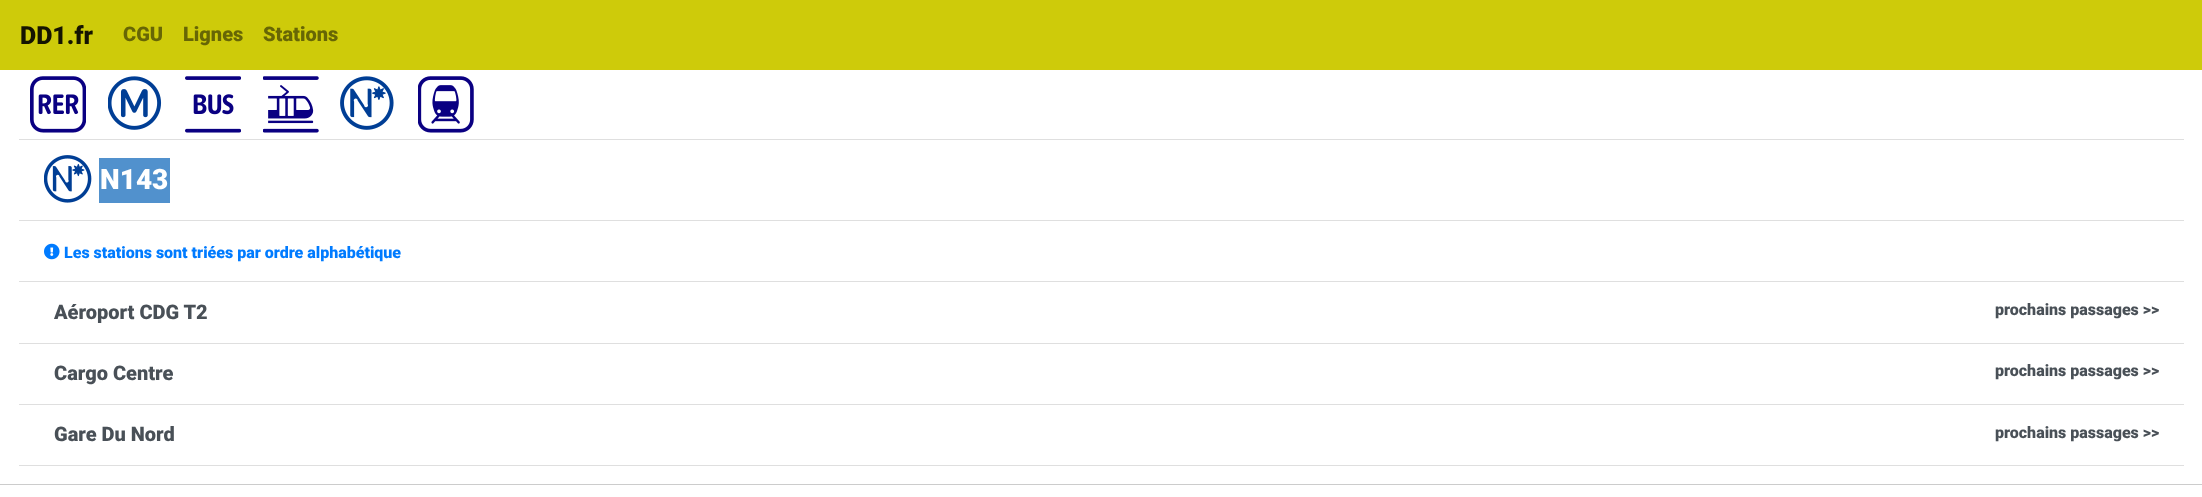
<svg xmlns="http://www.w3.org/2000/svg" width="2202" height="497">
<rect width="100%" height="100%" fill="#fff"/>
<rect width="2202" height="70" fill="#cecb0a"/>
<text x="20" y="44" style="font-family:Roboto;font-size:25px;font-weight:900;fill:#151401">DD1.fr</text>
<text x="123" y="41" style="font-family:Roboto;font-size:20px;font-weight:900;fill:#676605">CGU</text>
<text x="183" y="41" style="font-family:Roboto;font-size:20px;font-weight:900;fill:#676605">Lignes</text>
<text x="263" y="41" style="font-family:Roboto;font-size:20px;font-weight:900;fill:#676605">Stations</text>
<image x="30" y="76" width="56" height="57" href="media/1.png"/>
<image x="108" y="76" width="54" height="54" href="media/2.png"/>
<image x="185" y="76" width="56" height="57" href="media/3.png"/>
<image x="263" y="76" width="56" height="57" href="media/4.png"/>
<image x="340" y="76" width="54" height="54" href="media/5.png"/>
<image x="418" y="76" width="56" height="57" href="media/6.png"/>
<rect x="19" y="139" width="2165" height="1" fill="#dfdfdf"/>
<image x="44" y="155" width="48" height="48" href="media/7.png"/>
<rect x="99" y="158" width="71" height="45" fill="#5191cd"/>
<text x="100" y="189" style="font-family:Roboto;font-size:28px;font-weight:900;fill:#fff">N143</text>
<rect x="19" y="220" width="2165" height="1" fill="#dfdfdf"/>
<image x="44" y="243" width="16" height="17" href="media/8.png"/>
<text x="64" y="258" style="font-family:Roboto;font-size:16px;font-weight:900;fill:#007bff">Les stations sont triées par ordre alphabétique</text>
<rect x="19" y="281" width="2165" height="1" fill="#dfdfdf"/>
<text x="54" y="319" style="font-family:Roboto;font-size:20px;font-weight:900;fill:#495057">Aéroport CDG T2</text>
<text x="1995" y="315" style="font-family:Roboto;font-size:16px;font-weight:900;fill:#495057">prochains passages &gt;&gt;</text>
<rect x="19" y="343" width="2165" height="1" fill="#dfdfdf"/>
<text x="54" y="380" style="font-family:Roboto;font-size:20px;font-weight:900;fill:#495057">Cargo Centre</text>
<text x="1995" y="376" style="font-family:Roboto;font-size:16px;font-weight:900;fill:#495057">prochains passages &gt;&gt;</text>
<rect x="19" y="404" width="2165" height="1" fill="#dfdfdf"/>
<text x="54" y="441" style="font-family:Roboto;font-size:20px;font-weight:900;fill:#495057">Gare Du Nord</text>
<text x="1995" y="438" style="font-family:Roboto;font-size:16px;font-weight:900;fill:#495057">prochains passages &gt;&gt;</text>
<rect x="19" y="465" width="2165" height="1" fill="#dfdfdf"/>
<rect y="484" width="2202" height="1" fill="#ccc"/>
</svg>
